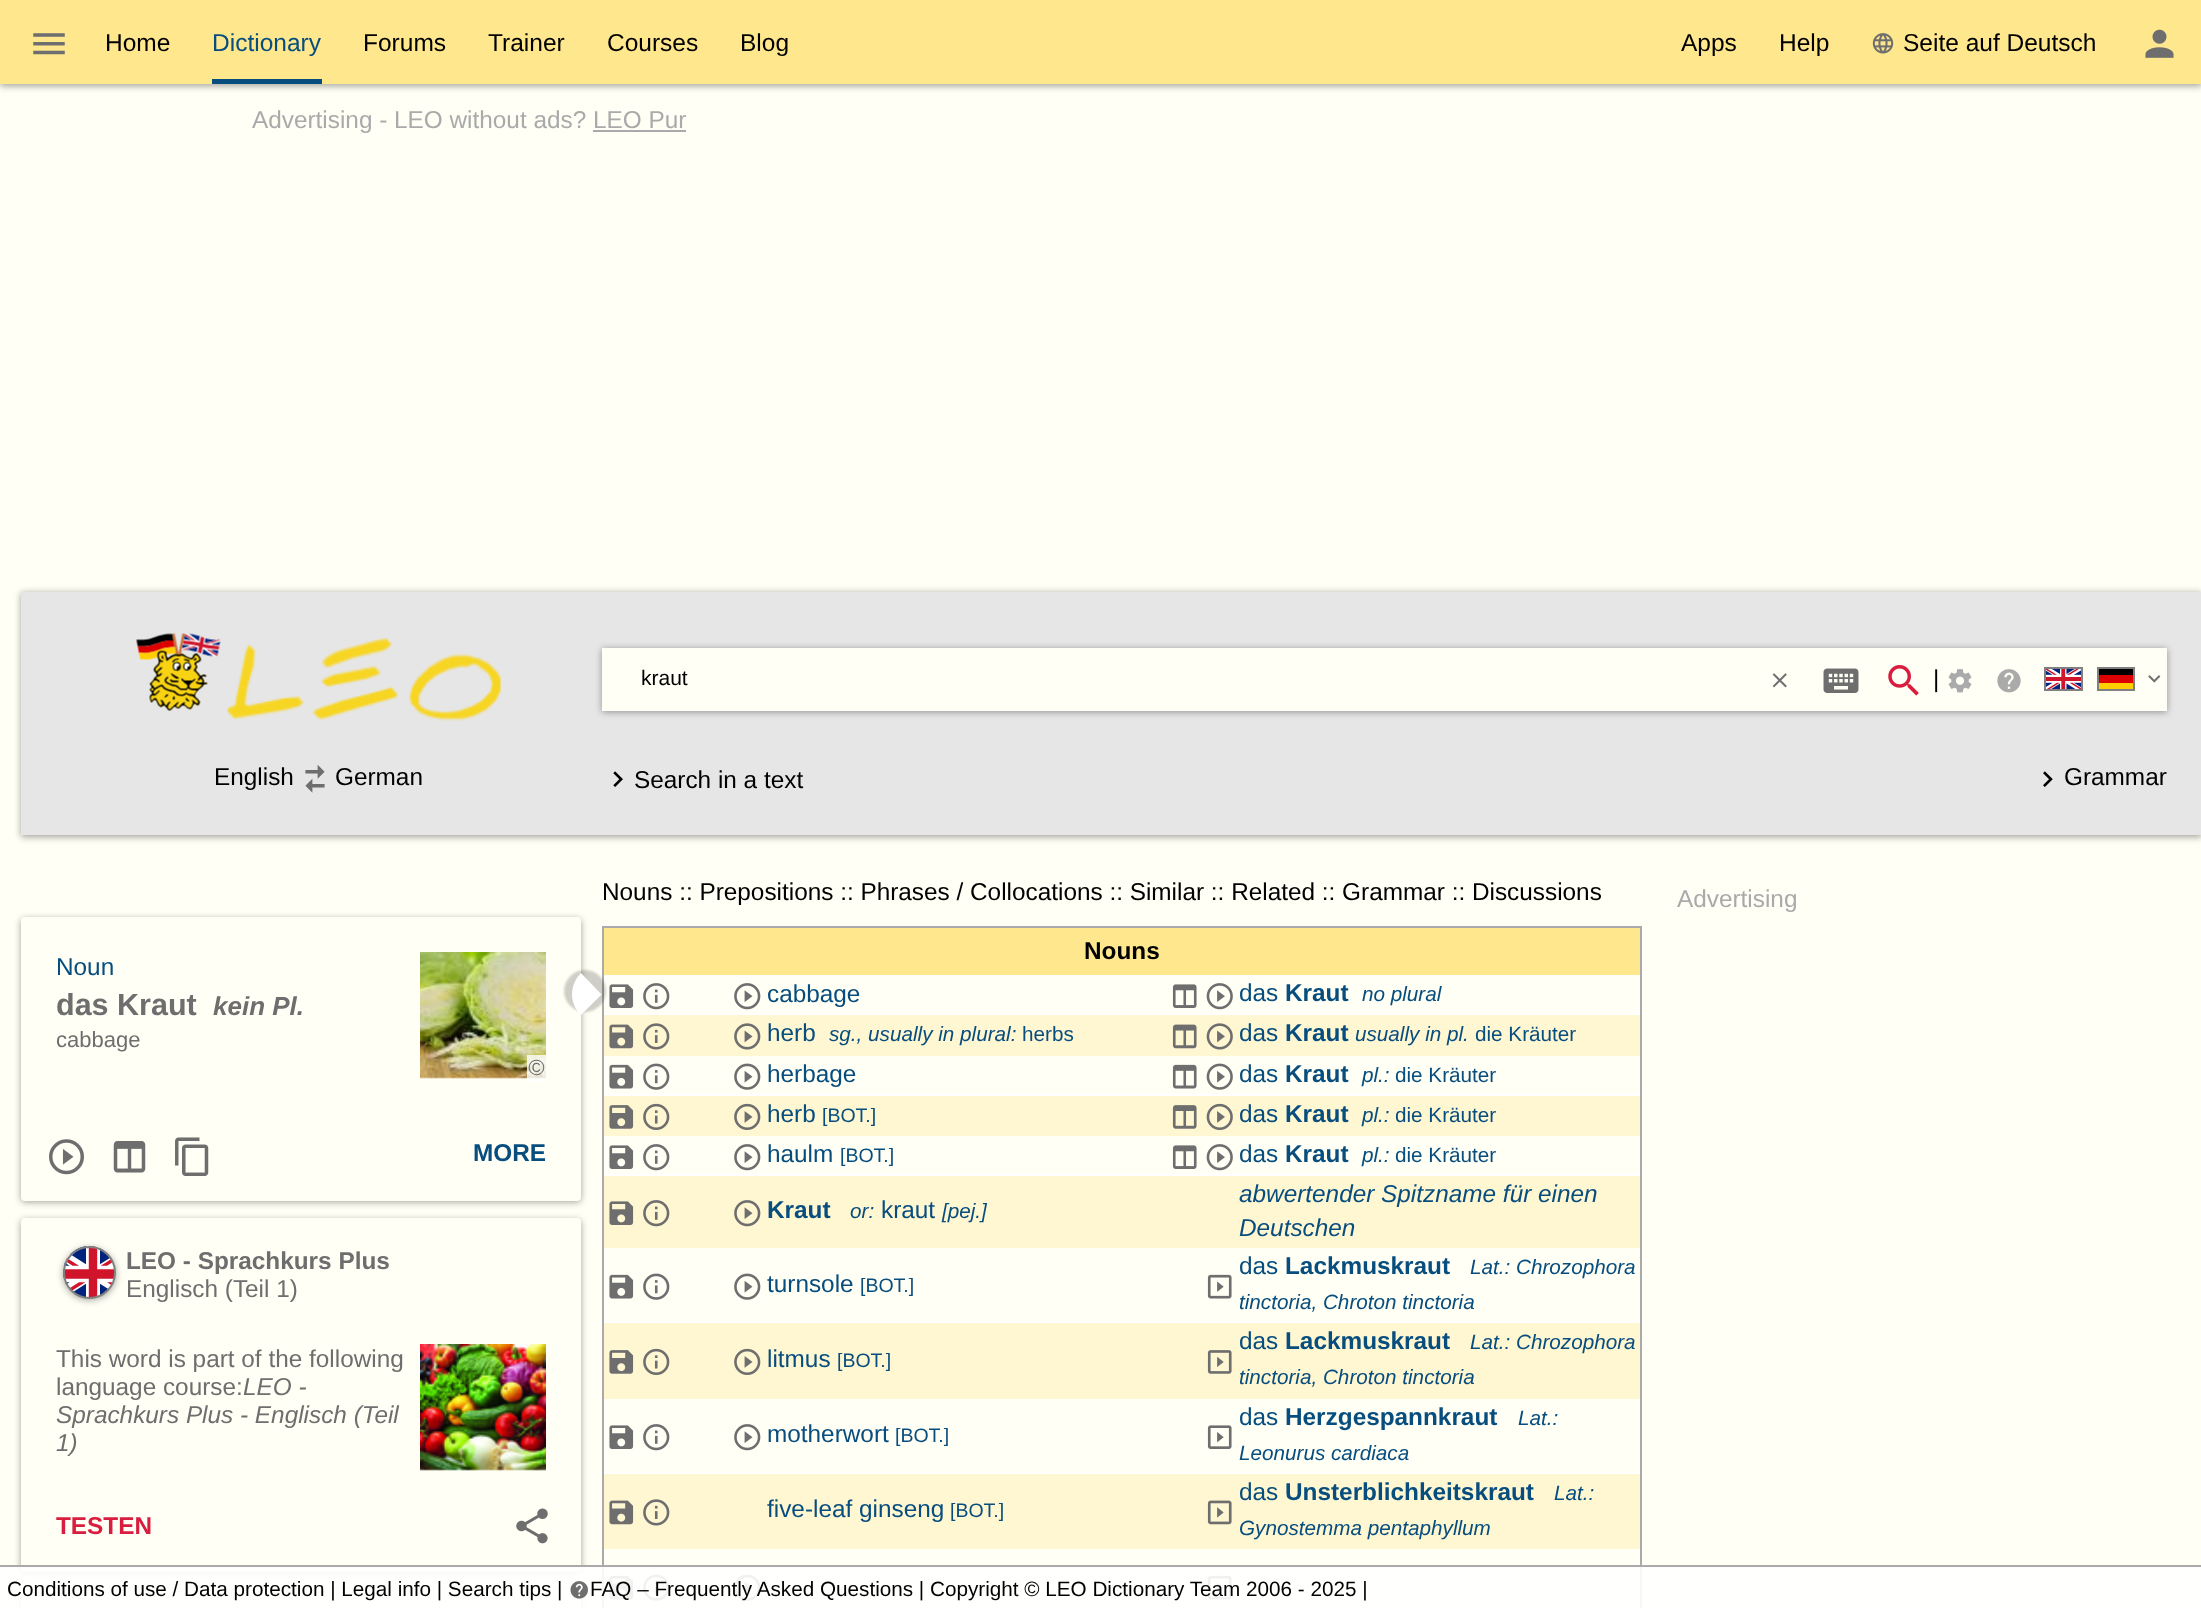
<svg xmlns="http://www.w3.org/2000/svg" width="2201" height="1608">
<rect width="100%" height="100%" fill="#fffff5"/>
<rect y="2" width="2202" height="84" fill="#0000005e" filter="blur(3.5px)"/>
<rect width="2201" height="84" fill="#ffe78d"/>
<image x="33" y="33" width="32" height="22" href="media/1.png"/>
<text x="105" y="51" style="font-family:Liberation Sans;font-size:24.5px;fill:#000">Home</text>
<text x="212" y="51" style="font-family:Liberation Sans;font-size:24.5px;fill:#074d7e">Dictionary</text>
<rect x="212" y="79" width="110" height="5" fill="#074d7e"/>
<text x="363" y="51" style="font-family:Liberation Sans;font-size:24.5px;fill:#000">Forums</text>
<text x="488" y="51" style="font-family:Liberation Sans;font-size:24.5px;fill:#000">Trainer</text>
<text x="607" y="51" style="font-family:Liberation Sans;font-size:24.5px;fill:#000">Courses</text>
<text x="740" y="51" style="font-family:Liberation Sans;font-size:24.5px;fill:#000">Blog</text>
<text x="1681" y="51" style="font-family:Liberation Sans;font-size:24.5px;fill:#000">Apps</text>
<text x="1779" y="51" style="font-family:Liberation Sans;font-size:24.5px;fill:#000">Help</text>
<image x="1872" y="33" width="22" height="21" href="media/2.png"/>
<text x="1903" y="51" style="font-family:Liberation Sans;font-size:24.5px;fill:#000">Seite auf Deutsch</text>
<image x="2145" y="29" width="29" height="29" href="media/3.png"/>
<text x="252" y="128" style="font-family:Liberation Sans;font-size:24.35px;fill:#aaa">Advertising - LEO without ads? LEO Pur</text>
<rect x="593" y="130" width="93" height="2" fill="#aaa"/>
<rect x="21" y="593" width="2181" height="244" fill="#0000005e" filter="blur(3.5px)"/>
<rect x="21" y="592" width="2180" height="243" fill="#e6e6e6"/>
<image x="136" y="633" width="85" height="78" href="media/4.png"/>
<image x="227" y="638" width="274" height="83" href="media/5.png"/>
<rect x="602" y="649" width="1565" height="63" fill="#0000005e" filter="blur(3.5px)"/>
<rect x="602" y="648" width="1565" height="63" fill="#fff"/>
<rect x="602" y="648" width="1565" height="63" rx="5" fill="#fffff5"/>
<text x="641" y="685" style="font-family:Liberation Sans;font-size:21px;fill:#000">kraut</text>
<image x="1772" y="673" width="15" height="15" href="media/6.png"/>
<image x="1823" y="668" width="36" height="25" href="media/7.png"/>
<image x="1888" y="665" width="31" height="31" href="media/8.png"/>
<text x="1933" y="687" style="font-family:Liberation Sans;font-size:24.35px;fill:#000">|</text>
<image x="1948" y="669" width="24" height="24" href="media/9.png"/>
<image x="1997" y="669" width="24" height="24" href="media/10.png"/>
<image x="2046" y="669" width="35" height="20" href="media/11.png"/>
<rect x="2045" y="668" width="37" height="22" fill="none" stroke="#808080" stroke-width="2"/>
<rect x="2097" y="669" width="38" height="6" fill="#000"/>
<rect x="2097" y="675" width="38" height="8" fill="#d00"/>
<rect x="2097" y="683" width="38" height="6" fill="#ffce00"/>
<rect x="2098" y="668" width="36" height="22" fill="none" stroke="#808080" stroke-width="2"/>
<image x="2148" y="675" width="13" height="8" href="media/12.png"/>
<text x="214" y="785" style="font-family:Liberation Sans;font-size:24.35px;fill:#000">English</text>
<image x="305" y="764" width="20" height="29" href="media/13.png"/>
<text x="335" y="785" style="font-family:Liberation Sans;font-size:24.35px;fill:#000">German</text>
<image x="613" y="771" width="10" height="16" href="media/14.png"/>
<text x="634" y="788" style="font-family:Liberation Sans;font-size:24.35px;fill:#000">Search in a text</text>
<image x="2043" y="771" width="10" height="16" href="media/15.png"/>
<text x="2064" y="785" style="font-family:Liberation Sans;font-size:24.35px;fill:#000">Grammar</text>
<rect x="21" y="919" width="560" height="283" rx="4" fill="#0000005e" filter="blur(3.5px)"/>
<rect x="21" y="917" width="560" height="284" rx="4" fill="#fffff5"/>
<text x="56" y="975" style="font-family:Liberation Sans;font-size:24.35px;fill:#074d7e">Noun</text>
<text x="56" y="1015" style="font-family:Liberation Sans;font-size:30.5px;font-weight:bold;fill:#6e6e6e">das Kraut</text>
<text x="213" y="1015" style="font-family:Liberation Sans;font-size:26px;font-weight:bold;font-style:italic;fill:#6e6e6e">kein Pl.</text>
<text x="56" y="1047" style="font-family:Liberation Sans;font-size:22px;fill:#6e6e6e">cabbage</text>
<image x="420" y="952" width="126" height="127" href="media/16.png"/>
<rect x="603" y="927" width="1038" height="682" fill="none" stroke="#aaa" stroke-width="2"/>
<rect x="604" y="928" width="1036" height="47" fill="#ffe78d"/>
<image x="609" y="984" width="25" height="24" href="media/23.png"/>
<rect x="604" y="1013" width="1036" height="2" fill="#fff"/>
<rect x="604" y="1015" width="1036" height="39" fill="#fff6d2"/>
<rect x="564" y="970" width="42" height="42" rx="42" fill="#00000030" filter="blur(1px)"/>
<path d="M581 973l20 21c1 0 1 1 0 1l-20 20c-12-11-12-30 0-42z" fill="#fff"/>
<rect x="527" y="1055" width="19" height="27" fill="#ffffffcc"/>
<text x="528" y="1075" style="font-family:Liberation Sans;font-size:22px;font-style:italic;fill:#6e6e6e">©</text>
<image x="49" y="1139" width="35" height="36" href="media/17.png"/>
<image x="113" y="1141" width="33" height="32" href="media/18.png"/>
<image x="175" y="1137" width="34" height="39" href="media/19.png"/>
<text x="473" y="1161" style="font-family:Liberation Sans;font-size:24.35px;font-weight:bold;fill:#074d7e">MORE</text>
<rect x="21" y="1220" width="560" height="353" rx="4" fill="#0000005e" filter="blur(3.5px)"/>
<rect x="21" y="1218" width="560" height="354" rx="4" fill="#fffff5"/>
<rect x="63" y="1248" width="53" height="52" rx="26" fill="#0000005e" filter="blur(3.5px)"/>
<image x="63" y="1246" width="53" height="53" href="media/20.png"/>
<circle cx="89.5" cy="1272.5" r="25.5" fill="none" stroke="#808080" stroke-width="2"/>
<text x="126" y="1269" style="font-family:Liberation Sans;font-size:24.35px;font-weight:bold;fill:#6e6e6e">LEO - Sprachkurs Plus</text>
<text x="126" y="1297" style="font-family:Liberation Sans;font-size:24.35px;fill:#6e6e6e">Englisch (Teil 1)</text>
<text x="56" y="1367" style="font-family:Liberation Sans;font-size:24.35px;fill:#6e6e6e">This word is part of the following</text>
<image x="420" y="1344" width="126" height="127" href="media/21.png"/>
<text x="56" y="1395" style="font-family:Liberation Sans;font-size:24.35px;fill:#6e6e6e">language course:</text>
<text x="243" y="1395" style="font-family:Liberation Sans;font-size:24.35px;font-style:italic;fill:#6e6e6e">LEO -</text>
<text x="56" y="1423" style="font-family:Liberation Sans;font-size:24.35px;font-style:italic;fill:#6e6e6e">Sprachkurs Plus - Englisch (Teil</text>
<text x="56" y="1451" style="font-family:Liberation Sans;font-size:24.35px;font-style:italic;fill:#6e6e6e">1)</text>
<text x="56" y="1534" style="font-family:Liberation Sans;font-size:24.35px;font-weight:bold;fill:#d91d3e">TESTEN</text>
<image x="516" y="1508" width="32" height="36" href="media/22.png"/>
<rect x="21" y="1591" width="560" height="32" rx="4" fill="#0000005e" filter="blur(3.5px)"/>
<path d="M25 1589h552c2 0 4 2 4 4v15h-560v-15c0-2 2-4 4-4z" fill="#fffff5"/>
<text x="602" y="900" style="font-family:Liberation Sans;font-size:24.35px;fill:#000">Nouns :: Prepositions :: Phrases / Collocations :: Similar :: Related :: Grammar :: Discussions</text>
<text x="1084" y="959" style="font-family:Liberation Sans;font-size:24.35px;font-weight:bold;fill:#000">Nouns</text>
<image x="643" y="983" width="27" height="27" href="media/24.png"/>
<image x="734" y="983" width="27" height="27" href="media/25.png"/>
<text x="767" y="1002" style="font-family:Liberation Sans;font-size:24.35px;fill:#074d7e">cabbage</text>
<image x="1172" y="984" width="25" height="24" href="media/26.png"/>
<image x="1206" y="983" width="27" height="27" href="media/27.png"/>
<text x="1239" y="1001" style="font-family:Liberation Sans;font-size:24.35px;fill:#074d7e">das</text>
<text x="1285" y="1001" style="font-family:Liberation Sans;font-size:24.35px;font-weight:bold;fill:#074d7e">Kraut</text>
<text x="1362" y="1001" style="font-family:Liberation Sans;font-size:20.7px;font-style:italic;fill:#074d7e">no plural</text>
<image x="609" y="1024" width="25" height="25" href="media/28.png"/>
<image x="643" y="1023" width="27" height="27" href="media/29.png"/>
<image x="734" y="1023" width="27" height="27" href="media/30.png"/>
<text x="767" y="1041" style="font-family:Liberation Sans;font-size:24.35px;fill:#074d7e">herb</text>
<text x="829" y="1041" style="font-family:Liberation Sans;font-size:20.7px;font-style:italic;fill:#074d7e">sg., usually in plural:</text>
<text x="1022" y="1041" style="font-family:Liberation Sans;font-size:20.7px;fill:#074d7e">herbs</text>
<image x="1172" y="1024" width="25" height="25" href="media/31.png"/>
<image x="1206" y="1023" width="27" height="27" href="media/32.png"/>
<rect x="604" y="1054" width="1036" height="2" fill="#fff6d2"/>
<text x="1239" y="1041" style="font-family:Liberation Sans;font-size:24.35px;fill:#074d7e">das</text>
<text x="1285" y="1041" style="font-family:Liberation Sans;font-size:24.35px;font-weight:bold;fill:#074d7e">Kraut</text>
<text x="1355" y="1041" style="font-family:Liberation Sans;font-size:20.7px;font-style:italic;fill:#074d7e">usually in pl.</text>
<text x="1475" y="1041" style="font-family:Liberation Sans;font-size:20.7px;fill:#074d7e">die Kräuter</text>
<image x="609" y="1064" width="25" height="25" href="media/33.png"/>
<image x="643" y="1063" width="27" height="27" href="media/34.png"/>
<image x="734" y="1063" width="27" height="27" href="media/35.png"/>
<text x="767" y="1082" style="font-family:Liberation Sans;font-size:24.35px;fill:#074d7e">herbage</text>
<image x="1172" y="1064" width="25" height="25" href="media/36.png"/>
<image x="1206" y="1063" width="27" height="27" href="media/37.png"/>
<rect x="604" y="1094" width="1036" height="2" fill="#fff"/>
<text x="1239" y="1082" style="font-family:Liberation Sans;font-size:24.35px;fill:#074d7e">das</text>
<text x="1285" y="1082" style="font-family:Liberation Sans;font-size:24.35px;font-weight:bold;fill:#074d7e">Kraut</text>
<text x="1362" y="1082" style="font-family:Liberation Sans;font-size:20.7px;font-style:italic;fill:#074d7e">pl.:</text>
<text x="1395" y="1082" style="font-family:Liberation Sans;font-size:20.7px;fill:#074d7e">die Kräuter</text>
<rect x="604" y="1096" width="1036" height="40" fill="#fff6d2"/>
<image x="609" y="1105" width="25" height="24" href="media/38.png"/>
<image x="643" y="1103" width="27" height="27" href="media/39.png"/>
<image x="734" y="1103" width="27" height="27" href="media/40.png"/>
<text x="767" y="1122" style="font-family:Liberation Sans;font-size:24.35px;fill:#074d7e">herb</text>
<text x="822" y="1122" style="font-family:Liberation Sans;font-size:19.5px;fill:#074d7e">[BOT.]</text>
<image x="1172" y="1105" width="25" height="24" href="media/41.png"/>
<image x="1206" y="1103" width="27" height="27" href="media/42.png"/>
<text x="1239" y="1122" style="font-family:Liberation Sans;font-size:24.35px;fill:#074d7e">das</text>
<text x="1285" y="1122" style="font-family:Liberation Sans;font-size:24.35px;font-weight:bold;fill:#074d7e">Kraut</text>
<text x="1362" y="1122" style="font-family:Liberation Sans;font-size:20.7px;font-style:italic;fill:#074d7e">pl.:</text>
<text x="1395" y="1122" style="font-family:Liberation Sans;font-size:20.7px;fill:#074d7e">die Kräuter</text>
<image x="609" y="1145" width="25" height="24" href="media/23.png"/>
<image x="643" y="1144" width="27" height="27" href="media/24.png"/>
<image x="734" y="1144" width="27" height="27" href="media/25.png"/>
<text x="767" y="1162" style="font-family:Liberation Sans;font-size:24.35px;fill:#074d7e">haulm</text>
<text x="840" y="1162" style="font-family:Liberation Sans;font-size:19.5px;fill:#074d7e">[BOT.]</text>
<image x="1172" y="1145" width="25" height="24" href="media/26.png"/>
<image x="1206" y="1144" width="27" height="27" href="media/27.png"/>
<rect x="604" y="1174" width="1036" height="2" fill="#fff"/>
<text x="1239" y="1162" style="font-family:Liberation Sans;font-size:24.35px;fill:#074d7e">das</text>
<text x="1285" y="1162" style="font-family:Liberation Sans;font-size:24.35px;font-weight:bold;fill:#074d7e">Kraut</text>
<text x="1362" y="1162" style="font-family:Liberation Sans;font-size:20.7px;font-style:italic;fill:#074d7e">pl.:</text>
<text x="1395" y="1162" style="font-family:Liberation Sans;font-size:20.7px;fill:#074d7e">die Kräuter</text>
<rect x="604" y="1176" width="1036" height="72" fill="#fff6d2"/>
<image x="609" y="1201" width="25" height="24" href="media/43.png"/>
<image x="643" y="1200" width="27" height="27" href="media/44.png"/>
<image x="734" y="1200" width="27" height="27" href="media/45.png"/>
<text x="767" y="1218" style="font-family:Liberation Sans;font-size:24.35px;font-weight:bold;fill:#074d7e">Kraut</text>
<text x="850" y="1218" style="font-family:Liberation Sans;font-size:20.7px;font-style:italic;fill:#074d7e">or:</text>
<text x="881" y="1218" style="font-family:Liberation Sans;font-size:24.35px;fill:#074d7e">kraut</text>
<text x="942" y="1218" style="font-family:Liberation Sans;font-size:20.7px;font-style:italic;fill:#074d7e">[pej.]</text>
<text x="1239" y="1202" style="font-family:Liberation Sans;font-size:24.35px;font-style:italic;fill:#074d7e">abwertender Spitzname für einen</text>
<text x="1239" y="1236" style="font-family:Liberation Sans;font-size:24.35px;font-style:italic;fill:#074d7e">Deutschen</text>
<image x="609" y="1274" width="25" height="25" href="media/33.png"/>
<image x="643" y="1273" width="27" height="27" href="media/34.png"/>
<image x="734" y="1273" width="27" height="27" href="media/35.png"/>
<text x="767" y="1292" style="font-family:Liberation Sans;font-size:24.35px;fill:#074d7e">turnsole</text>
<text x="860" y="1292" style="font-family:Liberation Sans;font-size:19.5px;fill:#074d7e">[BOT.]</text>
<image x="1207" y="1274" width="25" height="25" href="media/46.png"/>
<rect x="604" y="1321" width="1036" height="2" fill="#fff"/>
<text x="1239" y="1274" style="font-family:Liberation Sans;font-size:24.35px;fill:#074d7e">das</text>
<text x="1285" y="1274" style="font-family:Liberation Sans;font-size:24.35px;font-weight:bold;fill:#074d7e">Lackmuskraut</text>
<text x="1470" y="1274" style="font-family:Liberation Sans;font-size:20.7px;font-style:italic;fill:#074d7e">Lat.: Chrozophora</text>
<text x="1239" y="1309" style="font-family:Liberation Sans;font-size:20.7px;font-style:italic;fill:#074d7e">tinctoria, Chroton tinctoria</text>
<rect x="604" y="1323" width="1036" height="74" fill="#fff6d2"/>
<image x="609" y="1350" width="25" height="24" href="media/38.png"/>
<image x="643" y="1348" width="27" height="27" href="media/39.png"/>
<image x="734" y="1348" width="27" height="27" href="media/40.png"/>
<text x="767" y="1367" style="font-family:Liberation Sans;font-size:24.35px;fill:#074d7e">litmus</text>
<text x="837" y="1367" style="font-family:Liberation Sans;font-size:19.5px;fill:#074d7e">[BOT.]</text>
<image x="1207" y="1350" width="25" height="24" href="media/47.png"/>
<rect x="604" y="1397" width="1036" height="2" fill="#fff6d2"/>
<text x="1239" y="1349" style="font-family:Liberation Sans;font-size:24.35px;fill:#074d7e">das</text>
<text x="1285" y="1349" style="font-family:Liberation Sans;font-size:24.35px;font-weight:bold;fill:#074d7e">Lackmuskraut</text>
<text x="1470" y="1349" style="font-family:Liberation Sans;font-size:20.7px;font-style:italic;fill:#074d7e">Lat.: Chrozophora</text>
<text x="1239" y="1384" style="font-family:Liberation Sans;font-size:20.7px;font-style:italic;fill:#074d7e">tinctoria, Chroton tinctoria</text>
<image x="609" y="1425" width="25" height="24" href="media/23.png"/>
<image x="643" y="1424" width="27" height="27" href="media/24.png"/>
<image x="734" y="1424" width="27" height="27" href="media/25.png"/>
<text x="767" y="1442" style="font-family:Liberation Sans;font-size:24.35px;fill:#074d7e">motherwort</text>
<text x="895" y="1442" style="font-family:Liberation Sans;font-size:19.5px;fill:#074d7e">[BOT.]</text>
<image x="1207" y="1425" width="25" height="24" href="media/48.png"/>
<rect x="604" y="1472" width="1036" height="2" fill="#fff"/>
<text x="1239" y="1425" style="font-family:Liberation Sans;font-size:24.35px;fill:#074d7e">das</text>
<text x="1285" y="1425" style="font-family:Liberation Sans;font-size:24.35px;font-weight:bold;fill:#074d7e">Herzgespannkraut</text>
<text x="1518" y="1425" style="font-family:Liberation Sans;font-size:20.7px;font-style:italic;fill:#074d7e">Lat.:</text>
<text x="1239" y="1460" style="font-family:Liberation Sans;font-size:20.7px;font-style:italic;fill:#074d7e">Leonurus cardiaca</text>
<rect x="604" y="1474" width="1036" height="75" fill="#fff6d2"/>
<image x="609" y="1500" width="25" height="25" href="media/28.png"/>
<image x="643" y="1499" width="27" height="27" href="media/29.png"/>
<text x="767" y="1517" style="font-family:Liberation Sans;font-size:24.35px;fill:#074d7e">five-leaf ginseng</text>
<text x="950" y="1517" style="font-family:Liberation Sans;font-size:19.5px;fill:#074d7e">[BOT.]</text>
<image x="1207" y="1500" width="25" height="25" href="media/49.png"/>
<text x="1239" y="1500" style="font-family:Liberation Sans;font-size:24.35px;fill:#074d7e">das</text>
<text x="1285" y="1500" style="font-family:Liberation Sans;font-size:24.35px;font-weight:bold;fill:#074d7e">Unsterblichkeitskraut</text>
<text x="1554" y="1500" style="font-family:Liberation Sans;font-size:20.7px;font-style:italic;fill:#074d7e">Lat.:</text>
<text x="1239" y="1535" style="font-family:Liberation Sans;font-size:20.7px;font-style:italic;fill:#074d7e">Gynostemma pentaphyllum</text>
<image x="609" y="1575" width="25" height="25" href="media/33.png"/>
<image x="643" y="1574" width="27" height="27" href="media/34.png"/>
<image x="734" y="1574" width="27" height="27" href="media/35.png"/>
<image x="1207" y="1575" width="25" height="25" href="media/46.png"/>
<text x="1677" y="907" style="font-family:Liberation Sans;font-size:24.35px;fill:#aaa">Advertising</text>
<rect y="1567" width="2201" height="41" fill="#ffffffe6"/>
<rect y="1565" width="2201" height="2" fill="#aaa"/>
<text x="7" y="1596" style="font-family:Liberation Sans;font-size:20.7px;fill:#000">Conditions of use / Data protection | Legal info | Search tips |</text>
<image x="570" y="1581" width="18" height="18" href="media/50.png"/>
<text x="590" y="1596" style="font-family:Liberation Sans;font-size:20.7px;fill:#000">FAQ – Frequently Asked Questions | Copyright © LEO Dictionary Team 2006 - 2025 |</text>
</svg>
